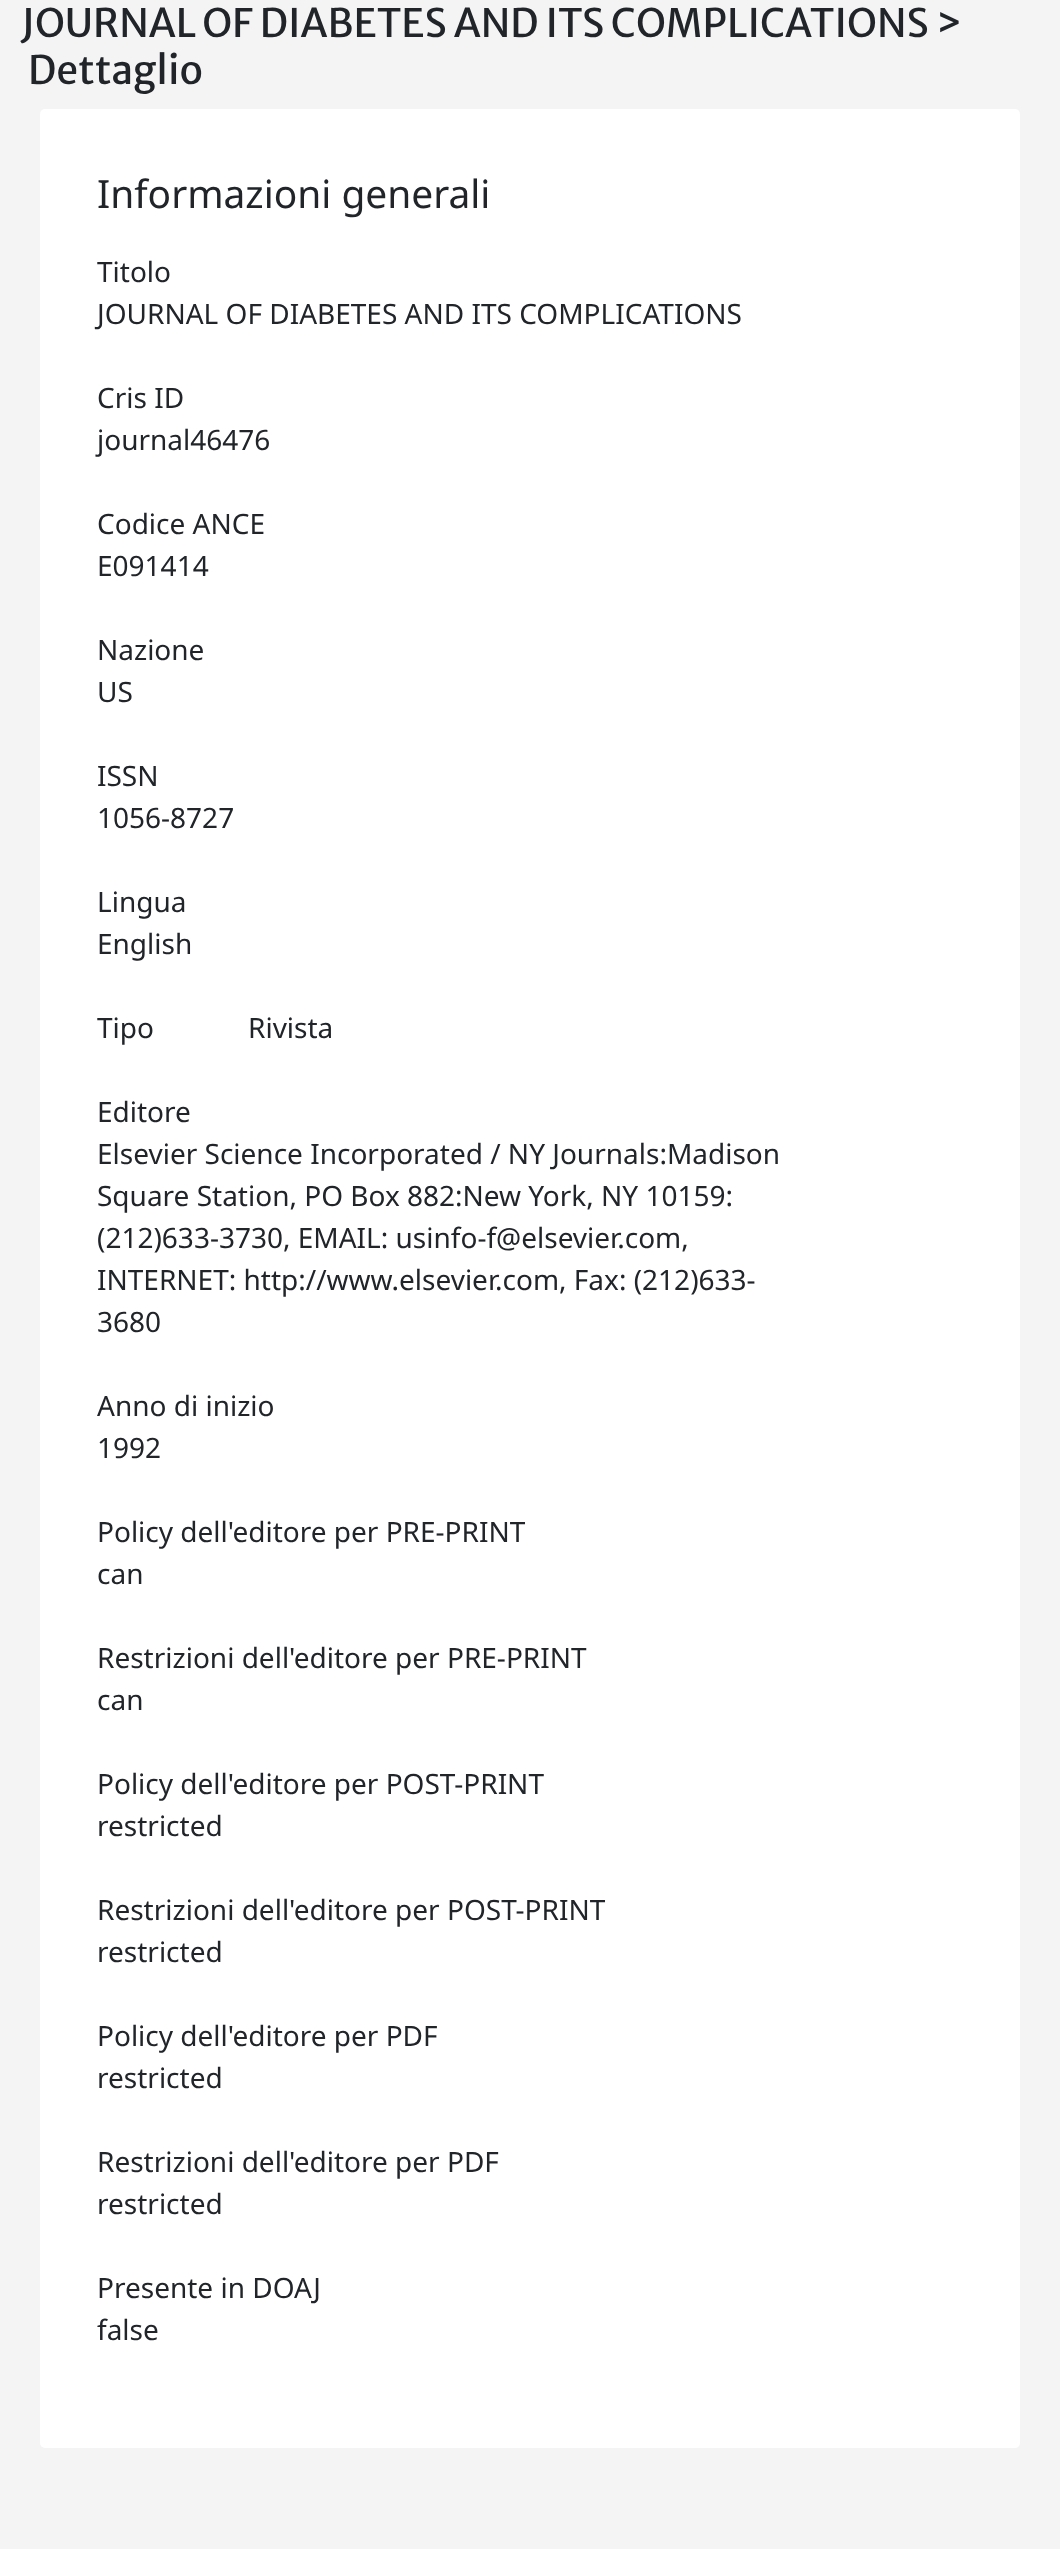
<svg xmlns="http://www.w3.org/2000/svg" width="1060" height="2549">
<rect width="100%" height="100%" fill="#f4f4f4"/>
<text x="21" y="37" style="font-family:Merriweather Sans;font-size:39.2px;fill:#212529">JOURNAL OF DIABETES AND ITS COMPLICATIONS &gt;</text>
<text x="28" y="84" style="font-family:Merriweather Sans;font-size:39.2px;fill:#212529">Dettaglio</text>
<rect x="40" y="109" width="980" height="2339" rx="5" fill="#fff"/>
<text x="97" y="208" style="font-family:Noto Sans;font-size:38.9px;fill:#212529">Informazioni generali</text>
<text x="97" y="282" style="font-family:Noto Sans;font-size:28px;fill:#212529">Titolo</text>
<text x="97" y="324" style="font-family:Noto Sans;font-size:28px;fill:#212529">JOURNAL OF DIABETES AND ITS COMPLICATIONS</text>
<text x="97" y="408" style="font-family:Noto Sans;font-size:28px;fill:#212529">Cris ID</text>
<text x="97" y="450" style="font-family:Noto Sans;font-size:28px;fill:#212529">journal46476</text>
<text x="97" y="534" style="font-family:Noto Sans;font-size:28px;fill:#212529">Codice ANCE</text>
<text x="97" y="576" style="font-family:Noto Sans;font-size:28px;fill:#212529">E091414</text>
<text x="97" y="660" style="font-family:Noto Sans;font-size:28px;fill:#212529">Nazione</text>
<text x="97" y="702" style="font-family:Noto Sans;font-size:28px;fill:#212529">US</text>
<text x="97" y="786" style="font-family:Noto Sans;font-size:28px;fill:#212529">ISSN</text>
<text x="97" y="828" style="font-family:Noto Sans;font-size:28px;fill:#212529">1056-8727</text>
<text x="97" y="912" style="font-family:Noto Sans;font-size:28px;fill:#212529">Lingua</text>
<text x="97" y="954" style="font-family:Noto Sans;font-size:28px;fill:#212529">English</text>
<text x="97" y="1038" style="font-family:Noto Sans;font-size:28px;fill:#212529">Tipo</text>
<text x="248" y="1038" style="font-family:Noto Sans;font-size:28px;fill:#212529">Rivista</text>
<text x="97" y="1122" style="font-family:Noto Sans;font-size:28px;fill:#212529">Editore</text>
<text x="97" y="1164" style="font-family:Noto Sans;font-size:28px;fill:#212529">Elsevier Science Incorporated / NY Journals:Madison</text>
<text x="97" y="1206" style="font-family:Noto Sans;font-size:28px;fill:#212529">Square Station, PO Box 882:New York, NY 10159:</text>
<text x="97" y="1248" style="font-family:Noto Sans;font-size:28px;fill:#212529">(212)633-3730, EMAIL: usinfo-f@elsevier.com,</text>
<text x="97" y="1290" style="font-family:Noto Sans;font-size:28px;fill:#212529">INTERNET: http://www.elsevier.com, Fax: (212)633-</text>
<text x="97" y="1332" style="font-family:Noto Sans;font-size:28px;fill:#212529">3680</text>
<text x="97" y="1416" style="font-family:Noto Sans;font-size:28px;fill:#212529">Anno di inizio</text>
<text x="97" y="1458" style="font-family:Noto Sans;font-size:28px;fill:#212529">1992</text>
<text x="97" y="1542" style="font-family:Noto Sans;font-size:28px;fill:#212529">Policy dell'editore per PRE-PRINT</text>
<text x="97" y="1584" style="font-family:Noto Sans;font-size:28px;fill:#212529">can</text>
<text x="97" y="1668" style="font-family:Noto Sans;font-size:28px;fill:#212529">Restrizioni dell'editore per PRE-PRINT</text>
<text x="97" y="1710" style="font-family:Noto Sans;font-size:28px;fill:#212529">can</text>
<text x="97" y="1794" style="font-family:Noto Sans;font-size:28px;fill:#212529">Policy dell'editore per POST-PRINT</text>
<text x="97" y="1836" style="font-family:Noto Sans;font-size:28px;fill:#212529">restricted</text>
<text x="97" y="1920" style="font-family:Noto Sans;font-size:28px;fill:#212529">Restrizioni dell'editore per POST-PRINT</text>
<text x="97" y="1962" style="font-family:Noto Sans;font-size:28px;fill:#212529">restricted</text>
<text x="97" y="2046" style="font-family:Noto Sans;font-size:28px;fill:#212529">Policy dell'editore per PDF</text>
<text x="97" y="2088" style="font-family:Noto Sans;font-size:28px;fill:#212529">restricted</text>
<text x="97" y="2172" style="font-family:Noto Sans;font-size:28px;fill:#212529">Restrizioni dell'editore per PDF</text>
<text x="97" y="2214" style="font-family:Noto Sans;font-size:28px;fill:#212529">restricted</text>
<text x="97" y="2298" style="font-family:Noto Sans;font-size:28px;fill:#212529">Presente in DOAJ</text>
<text x="97" y="2340" style="font-family:Noto Sans;font-size:28px;fill:#212529">false</text>
</svg>
